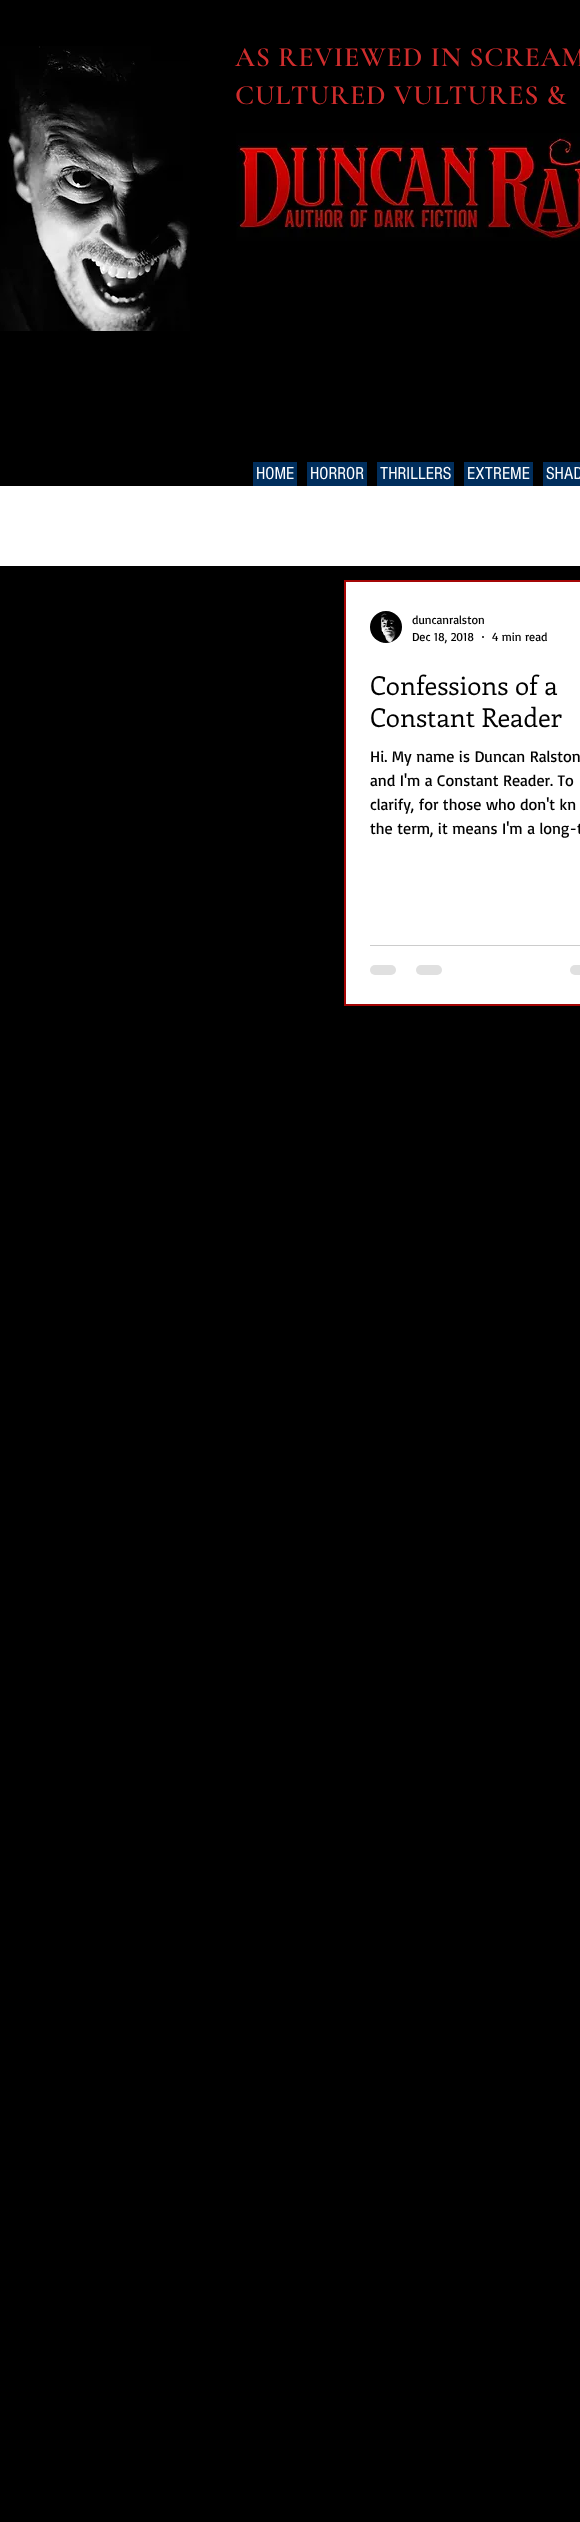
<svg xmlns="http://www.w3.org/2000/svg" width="580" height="2522">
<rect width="100%" height="100%" fill="#000"/>
<image x="0" y="46" width="190" height="285" href="media/1.png"/>
<text x="235" y="66" style="font-family:Cormorant Garamond;font-size:28px;font-weight:600;letter-spacing:0.8px;fill:#cf2d2d">AS REVIEWED IN SCREAM</text>
<text x="235" y="104" style="font-family:Cormorant Garamond;font-size:28px;font-weight:600;letter-spacing:0.8px;fill:#cf2d2d">CULTURED VULTURES &amp;</text>
<image x="236" y="133" width="344" height="108" href="media/2.png"/>
<rect x="253" y="462" width="44" height="24" fill="#002e5d"/>
<text x="256" y="479" style="font-family:'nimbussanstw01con';font-size:18px;fill:#fff">HOME</text>
<rect x="307" y="462" width="60" height="24" fill="#002e5d"/>
<text x="310" y="479" style="font-family:'nimbussanstw01con';font-size:18px;fill:#fff">HORROR</text>
<rect x="377" y="462" width="77" height="24" fill="#002e5d"/>
<text x="380" y="479" style="font-family:'nimbussanstw01con';font-size:18px;fill:#fff">THRILLERS</text>
<rect x="464" y="462" width="69" height="24" fill="#002e5d"/>
<text x="467" y="479" style="font-family:'nimbussanstw01con';font-size:18px;fill:#fff">EXTREME</text>
<rect x="543" y="462" width="37" height="24" fill="#002e5d"/>
<text x="546" y="479" style="font-family:'nimbussanstw01con';font-size:18px;fill:#fff">SHAD</text>
<rect y="486" width="580" height="80" fill="#fff"/>
<rect x="345" y="581" width="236" height="424" fill="#fff" stroke="#a40606" stroke-width="2"/>
<image x="370" y="611" width="32" height="32" href="media/3.png"/>
<text x="412" y="624" style="font-family:Basic;font-size:12px;fill:#000">duncanralston</text>
<text x="412" y="641" style="font-family:Basic;font-size:12px;fill:#000">Dec 18, 2018</text>
<circle cx="483" cy="637" r="1" fill="#000"/>
<text x="492" y="641" style="font-family:Basic;font-size:12px;fill:#000">4 min read</text>
<text x="370" y="695" style="font-family:Enriqueta;font-size:26px;fill:#000">Confessions of a</text>
<text x="370" y="727" style="font-family:Enriqueta;font-size:26px;fill:#000">Constant Reader</text>
<text x="370" y="762" style="font-family:Basic;font-size:16px;fill:#000">Hi. My name is Duncan Ralston</text>
<text x="370" y="786" style="font-family:Basic;font-size:16px;fill:#000">and I'm a Constant Reader. To</text>
<text x="370" y="810" style="font-family:Basic;font-size:16px;fill:#000">clarify, for those who don't kn</text>
<text x="370" y="834" style="font-family:Basic;font-size:16px;fill:#000">the term, it means I'm a long-t</text>
<rect x="370" y="945" width="210" height="1" fill="#ccc"/>
<rect x="370" y="965" width="26" height="10" rx="5" fill="#e0e0e0"/>
<rect x="416" y="965" width="26" height="10" rx="5" fill="#e0e0e0"/>
<rect x="570" y="965" width="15" height="10" rx="5" fill="#e0e0e0"/>
</svg>
